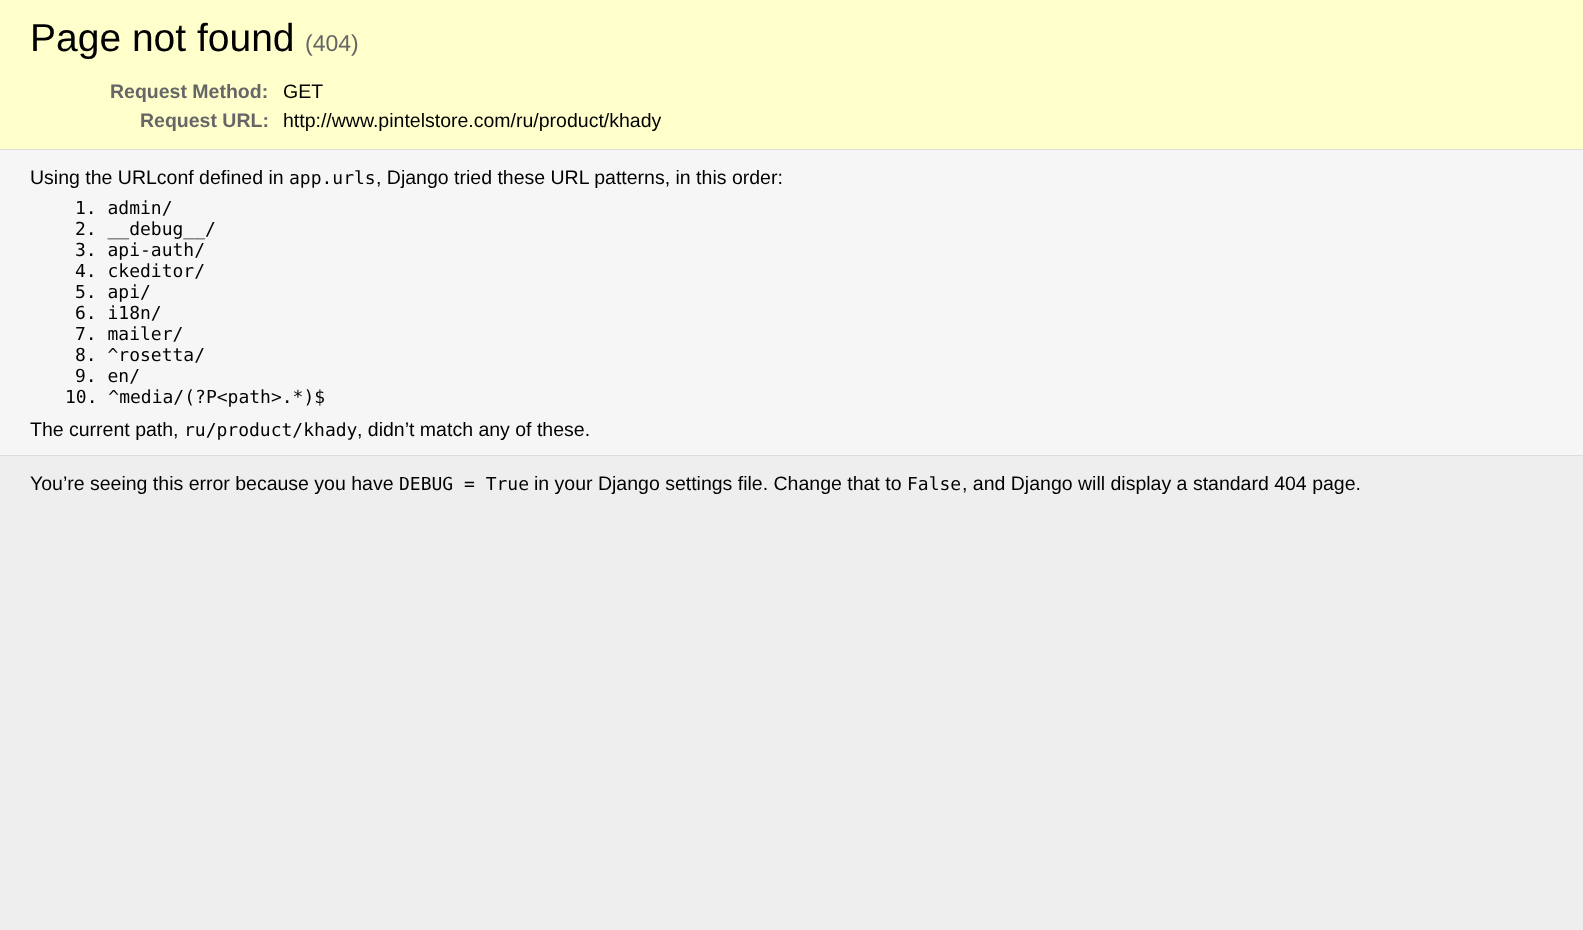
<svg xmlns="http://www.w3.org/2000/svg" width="1583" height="930">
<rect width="100%" height="100%" fill="#eee"/>
<rect width="1583" height="149" fill="#ffc"/>
<rect y="149" width="1583" height="1" fill="#ddd"/>
<text x="30" y="51" style="font-family:Liberation Sans;font-size:39px;fill:#000">Page not found</text>
<text x="305" y="51" style="font-family:Liberation Sans;font-size:23px;fill:#666">(404)</text>
<text x="110" y="98" style="font-family:Liberation Sans;font-size:19.5px;font-weight:bold;fill:#666">Request Method:</text>
<text x="283" y="98" style="font-family:Liberation Sans;font-size:19.5px;fill:#000">GET</text>
<text x="140" y="127" style="font-family:Liberation Sans;font-size:19.5px;font-weight:bold;fill:#666">Request URL:</text>
<text x="283" y="127" style="font-family:Liberation Sans;font-size:19.5px;fill:#000">http://www.pintelstore.com/ru/product/khady</text>
<rect y="150" width="1583" height="305" fill="#f6f6f6"/>
<rect y="455" width="1583" height="1" fill="#ddd"/>
<text x="30" y="184" style="font-family:Liberation Sans;font-size:19.5px;fill:#000">Using the URLconf defined in</text>
<text x="289" y="184" style="font-family:DejaVu Sans Mono;font-size:18px;fill:#000">app.urls</text>
<text x="376" y="184" style="font-family:Liberation Sans;font-size:19.5px;fill:#000">, Django tried these URL patterns, in this order:</text>
<text x="75" y="214" style="font-family:DejaVu Sans Mono;font-size:18px;fill:#000">1. admin/</text>
<text x="75" y="235" style="font-family:DejaVu Sans Mono;font-size:18px;fill:#000">2. __debug__/</text>
<text x="75" y="256" style="font-family:DejaVu Sans Mono;font-size:18px;fill:#000">3. api-auth/</text>
<text x="75" y="277" style="font-family:DejaVu Sans Mono;font-size:18px;fill:#000">4. ckeditor/</text>
<text x="75" y="298" style="font-family:DejaVu Sans Mono;font-size:18px;fill:#000">5. api/</text>
<text x="75" y="319" style="font-family:DejaVu Sans Mono;font-size:18px;fill:#000">6. i18n/</text>
<text x="75" y="340" style="font-family:DejaVu Sans Mono;font-size:18px;fill:#000">7. mailer/</text>
<text x="75" y="361" style="font-family:DejaVu Sans Mono;font-size:18px;fill:#000">8. ^rosetta/</text>
<text x="75" y="382" style="font-family:DejaVu Sans Mono;font-size:18px;fill:#000">9. en/</text>
<text x="65" y="403" style="font-family:DejaVu Sans Mono;font-size:18px;fill:#000">10. ^media/(?P&lt;path&gt;.*)$</text>
<text x="30" y="436" style="font-family:Liberation Sans;font-size:19.5px;fill:#000">The current path,</text>
<text x="184" y="436" style="font-family:DejaVu Sans Mono;font-size:18px;fill:#000">ru/product/khady</text>
<text x="357" y="436" style="font-family:Liberation Sans;font-size:19.5px;fill:#000">, didn’t match any of these.</text>
<text x="30" y="490" style="font-family:Liberation Sans;font-size:19.5px;fill:#000">You’re seeing this error because you have</text>
<text x="399" y="490" style="font-family:DejaVu Sans Mono;font-size:18px;fill:#000">DEBUG = True</text>
<text x="534" y="490" style="font-family:Liberation Sans;font-size:19.5px;fill:#000">in your Django settings file. Change that to</text>
<text x="907" y="490" style="font-family:DejaVu Sans Mono;font-size:18px;fill:#000">False</text>
<text x="962" y="490" style="font-family:Liberation Sans;font-size:19.5px;fill:#000">, and Django will display a standard 404 page.</text>
</svg>
